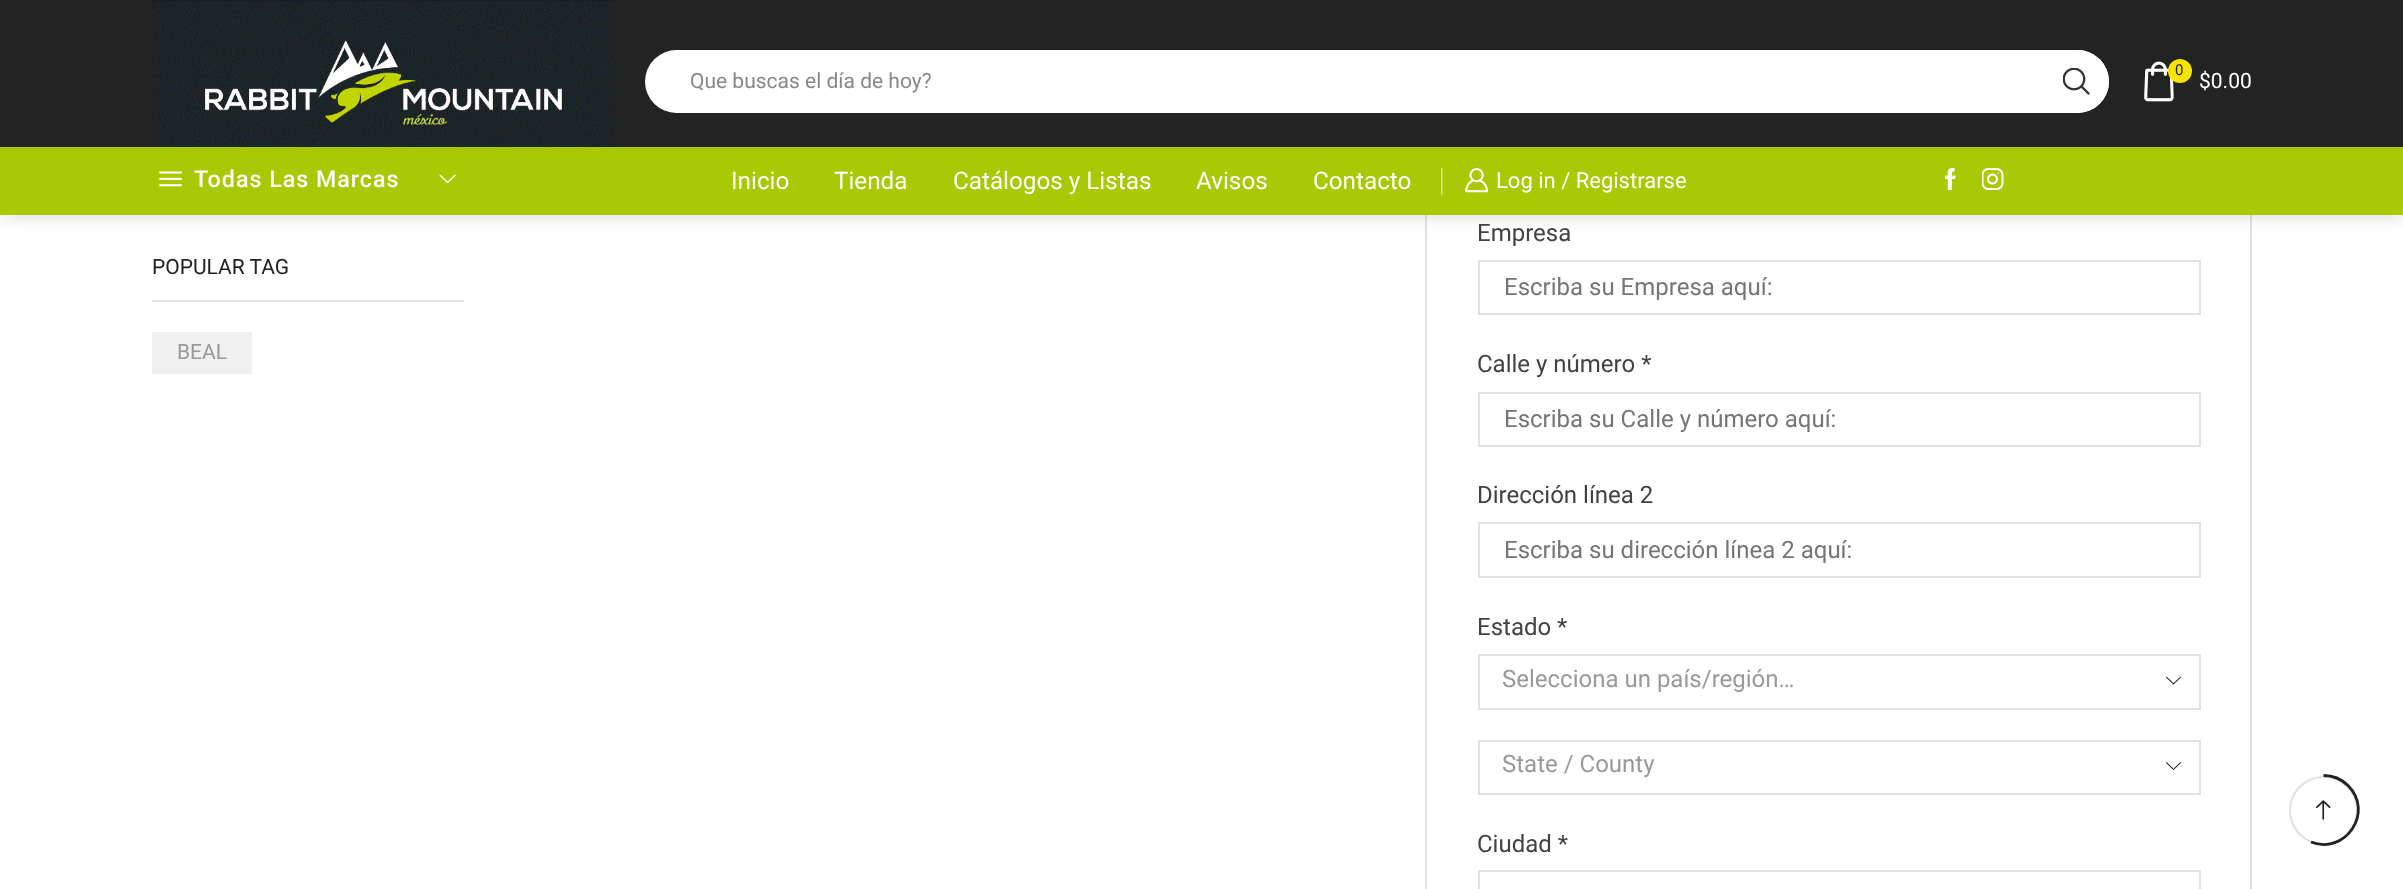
<svg xmlns="http://www.w3.org/2000/svg" width="2403" height="889">
<rect width="100%" height="100%" fill="#fff"/>
<rect x="1426" y="-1" width="825" height="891" fill="none" stroke="#e1e1e1" stroke-width="2"/>
<rect x="3" y="147" width="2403" height="68" fill="#00000026" filter="blur(9px)"/>
<rect width="2403" height="147" fill="#232323"/>
<image x="152" y="0" width="463" height="147" href="media/1.png"/>
<rect x="645" y="50" width="1464" height="63" rx="31.5" fill="#fff"/>
<rect x="675" y="50" width="1" height="63" fill="#fff"/>
<text x="690" y="88" style="font-family:Roboto;font-size:21px;fill:#888">Que buscas el día de hoy?</text>
<circle cx="2077.5" cy="81.5" r="31.5" fill="#fff"/>
<image x="2063" y="68" width="27" height="27" href="media/2.png"/>
<image x="2144" y="61" width="30" height="41" href="media/3.png"/>
<circle cx="2180" cy="71" r="12" fill="#f3e500"/>
<text x="2175" y="75" style="font-family:Roboto;font-size:15px;fill:#222">0</text>
<text x="2199" y="88" style="font-family:Roboto;font-size:21px;fill:#fff">$0.00</text>
<rect y="147" width="2403" height="68" fill="#a8c904"/>
<image x="159" y="171" width="24" height="16" href="media/4.png"/>
<text x="194" y="187" style="font-family:Roboto;font-size:23.25px;font-weight:500;letter-spacing:1px;fill:#fff">Todas Las Marcas</text>
<image x="439" y="174" width="17" height="10" href="media/5.png"/>
<text x="731" y="189" style="font-family:Roboto;font-size:24.25px;fill:#fff">Inicio</text>
<text x="834" y="189" style="font-family:Roboto;font-size:24.25px;fill:#fff">Tienda</text>
<text x="953" y="189" style="font-family:Roboto;font-size:24.25px;fill:#fff">Catálogos y Listas</text>
<text x="1196" y="189" style="font-family:Roboto;font-size:24.25px;fill:#fff">Avisos</text>
<text x="1313" y="189" style="font-family:Roboto;font-size:24.25px;fill:#fff">Contacto</text>
<text x="1434" y="188" style="font-family:Liberation Serif;font-size:22px;fill:#d4e482">│</text>
<image x="1465" y="168" width="23" height="25" href="media/6.png"/>
<text x="1496" y="188" style="font-family:Roboto;font-size:22px;fill:#fff">Log in / Registrarse</text>
<image x="1945" y="168" width="11" height="22" href="media/7.png"/>
<image x="1982" y="168" width="22" height="22" href="media/8.png"/>
<rect x="152" y="300" width="312" height="2" fill="#e1e1e1"/>
<text x="152" y="274" style="font-family:Roboto;font-size:21px;fill:#222">POPULAR TAG</text>
<rect x="152" y="332" width="100" height="42" fill="#f0f0f0"/>
<text x="177" y="359" style="font-family:Roboto;font-size:21px;fill:#999">BEAL</text>
<text x="1477" y="241" style="font-family:Roboto;font-size:24px;fill:#424242">Empresa</text>
<rect x="1479" y="261" width="721" height="53" fill="none" stroke="#e1e1e1" stroke-width="2"/>
<text x="1504" y="295" style="font-family:Roboto;font-size:24px;fill:#757575">Escriba su Empresa aquí:</text>
<text x="1477" y="372" style="font-family:Roboto;font-size:24px;fill:#424242">Calle y número *</text>
<rect x="1479" y="393" width="721" height="53" fill="none" stroke="#e1e1e1" stroke-width="2"/>
<text x="1504" y="427" style="font-family:Roboto;font-size:24px;fill:#757575">Escriba su Calle y número aquí:</text>
<text x="1477" y="503" style="font-family:Roboto;font-size:24px;fill:#424242">Dirección línea 2</text>
<rect x="1479" y="523" width="721" height="54" fill="none" stroke="#e1e1e1" stroke-width="2"/>
<text x="1504" y="558" style="font-family:Roboto;font-size:24px;fill:#757575">Escriba su dirección línea 2 aquí:</text>
<text x="1477" y="635" style="font-family:Roboto;font-size:24px;fill:#424242">Estado *</text>
<image x="2166" y="676" width="15" height="9" href="media/9.png"/>
<rect x="1479" y="655" width="721" height="54" fill="none" stroke="#e1e1e1" stroke-width="2"/>
<text x="1502" y="687" style="font-family:Roboto;font-size:24px;fill:#999">Selecciona un país/región…</text>
<image x="2166" y="762" width="15" height="8" href="media/10.png"/>
<rect x="1479" y="741" width="721" height="53" fill="none" stroke="#e1e1e1" stroke-width="2"/>
<text x="1502" y="772" style="font-family:Roboto;font-size:24px;fill:#999">State / County</text>
<text x="1477" y="852" style="font-family:Roboto;font-size:24px;fill:#424242">Ciudad *</text>
<rect x="1479" y="871" width="721" height="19" fill="none" stroke="#e1e1e1" stroke-width="2"/>
<circle cx="2323.5" cy="810.5" r="33.5" fill="none" stroke="#e1e1e1" stroke-width="2"/>
<path d="M2323.5 775.5c9 0 18 3.5 24.5 10c27 27-3.5 70-37 56.5" fill="none" stroke="#222" stroke-width="2.8"/>
<image x="2316" y="800" width="15" height="20" href="media/11.png"/>
</svg>
